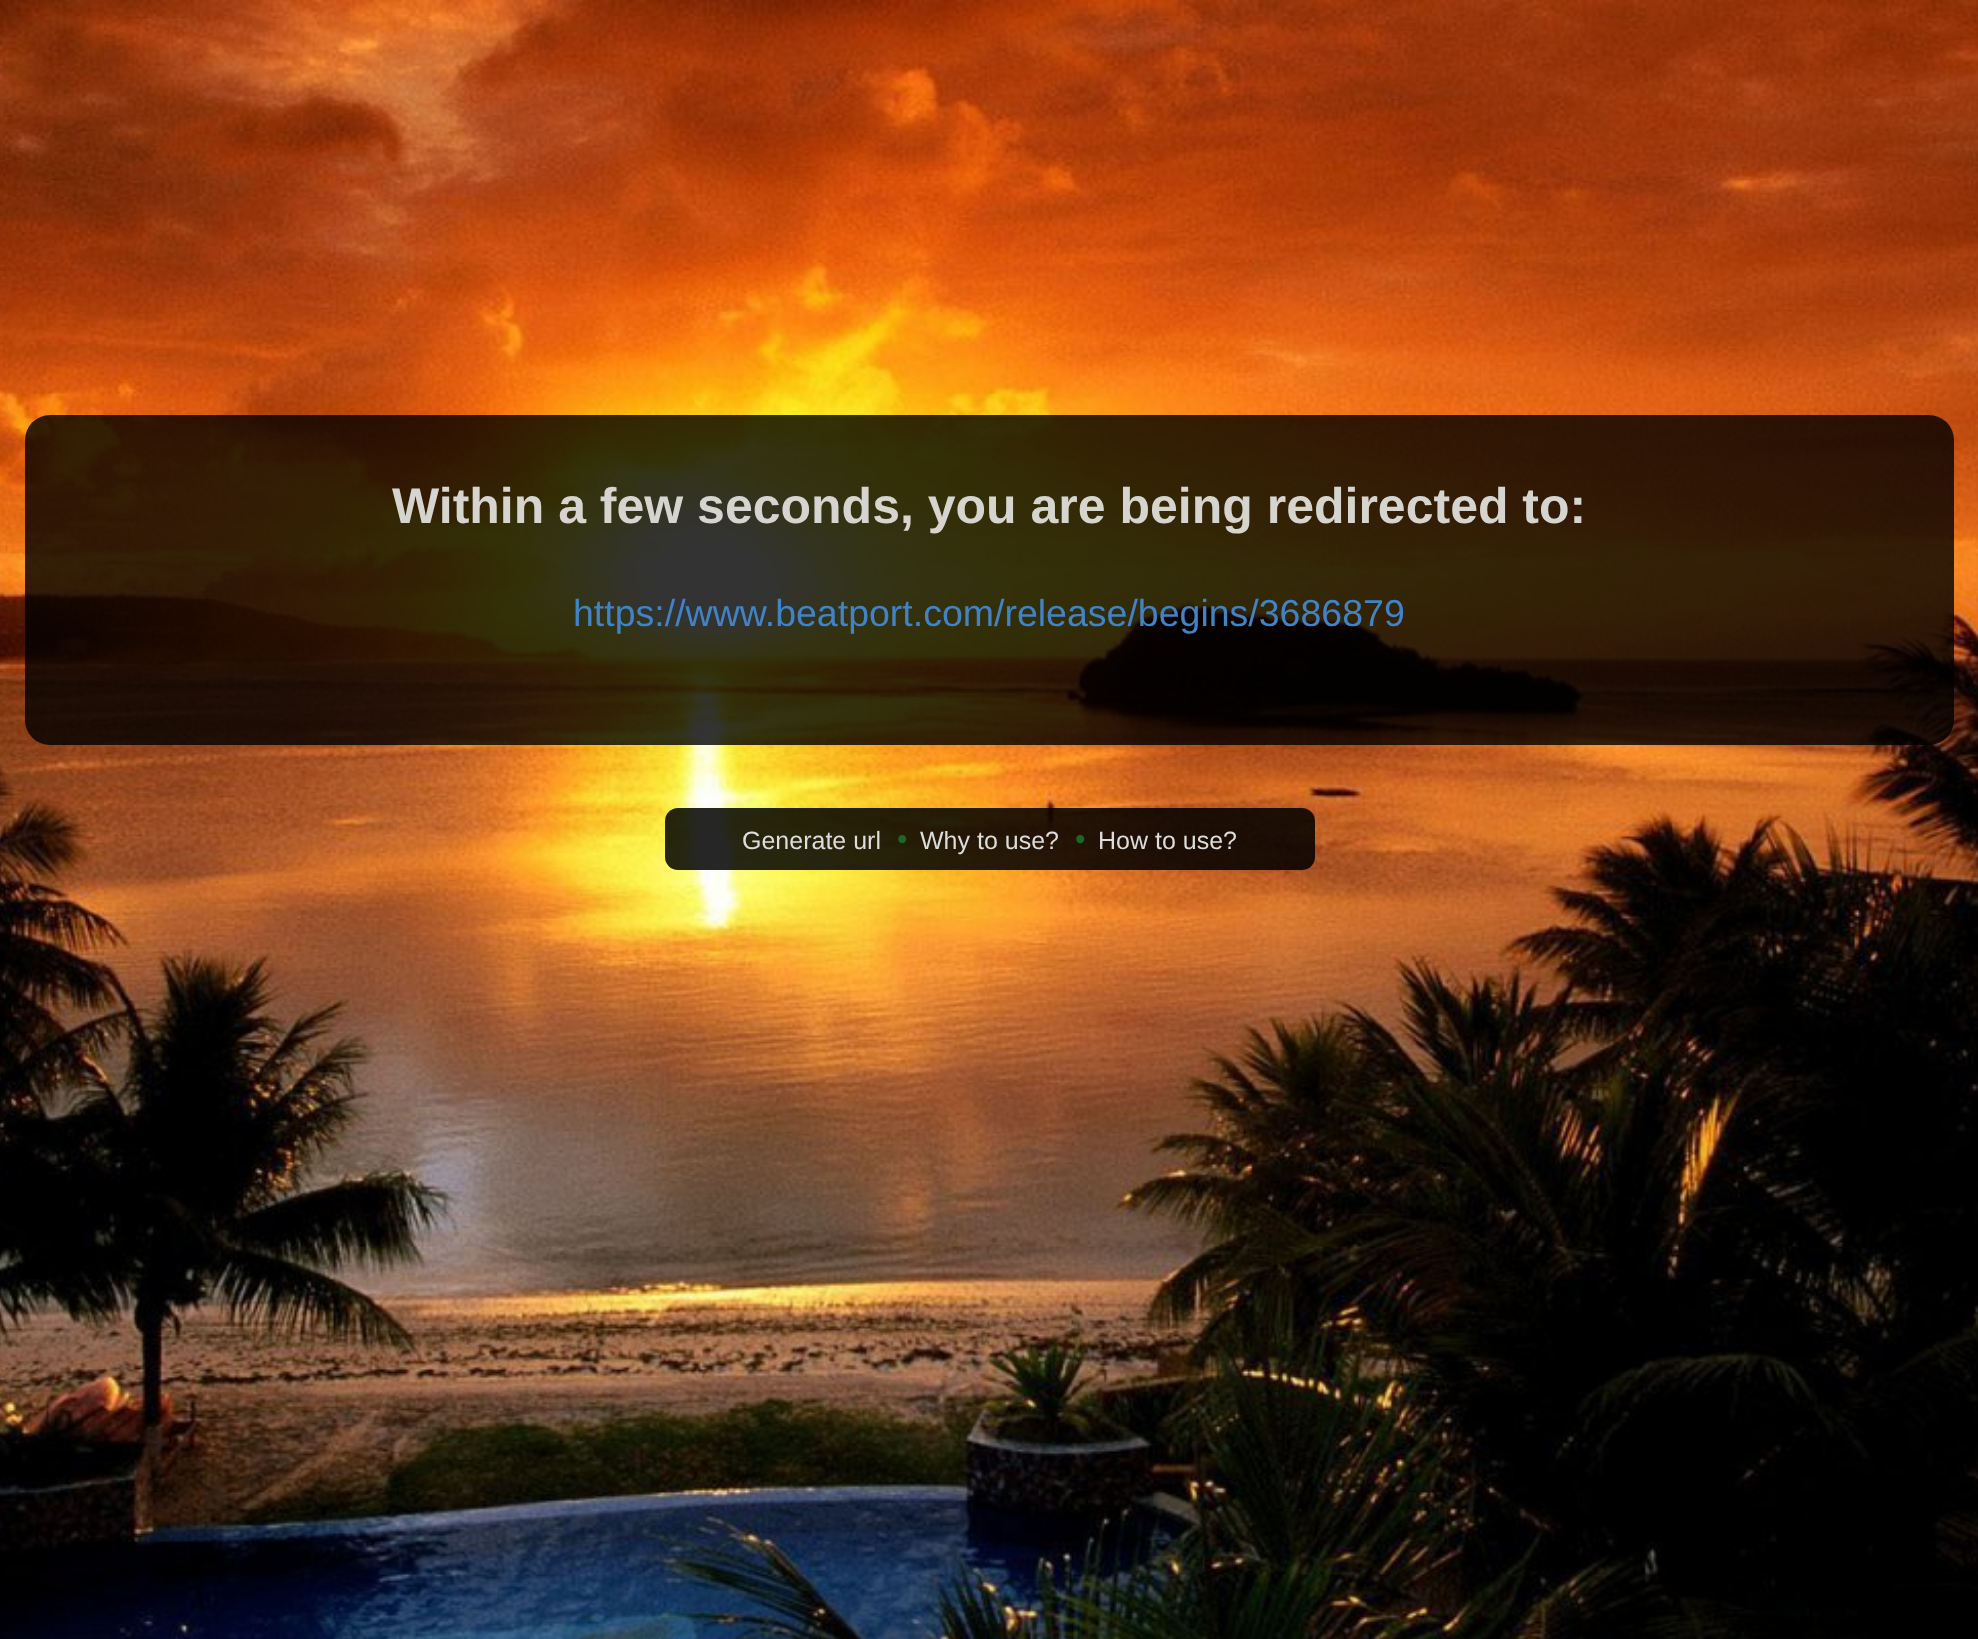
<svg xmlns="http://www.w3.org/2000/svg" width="1978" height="1639">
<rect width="100%" height="100%" fill="#fff"/>
<image x="0" y="0" width="1978" height="1639" href="media/1.png"/>
<rect x="25" y="415" width="1929" height="330" rx="25" fill="#000000cc"/>
<text x="392" y="523" style="font-family:Liberation Sans;font-size:50px;font-weight:bold;fill:#d6d4ce">Within a few seconds, you are being redirected to:</text>
<text x="573" y="626" style="font-family:Liberation Sans;font-size:37.5px;fill:#4183c4">https://www.beatport.com/release/begins/3686879</text>
<rect x="665" y="808" width="650" height="62" rx="13" fill="#000000d9"/>
<text x="742" y="849" style="font-family:Liberation Sans;font-size:25px;fill:#ddd">Generate url</text>
<text x="897" y="849" style="font-family:Liberation Sans;font-size:30px;fill:#1b6728">•</text>
<text x="920" y="849" style="font-family:Liberation Sans;font-size:25px;fill:#ddd">Why to use?</text>
<text x="1075" y="849" style="font-family:Liberation Sans;font-size:30px;fill:#1b6728">•</text>
<text x="1098" y="849" style="font-family:Liberation Sans;font-size:25px;fill:#ddd">How to use?</text>
</svg>
